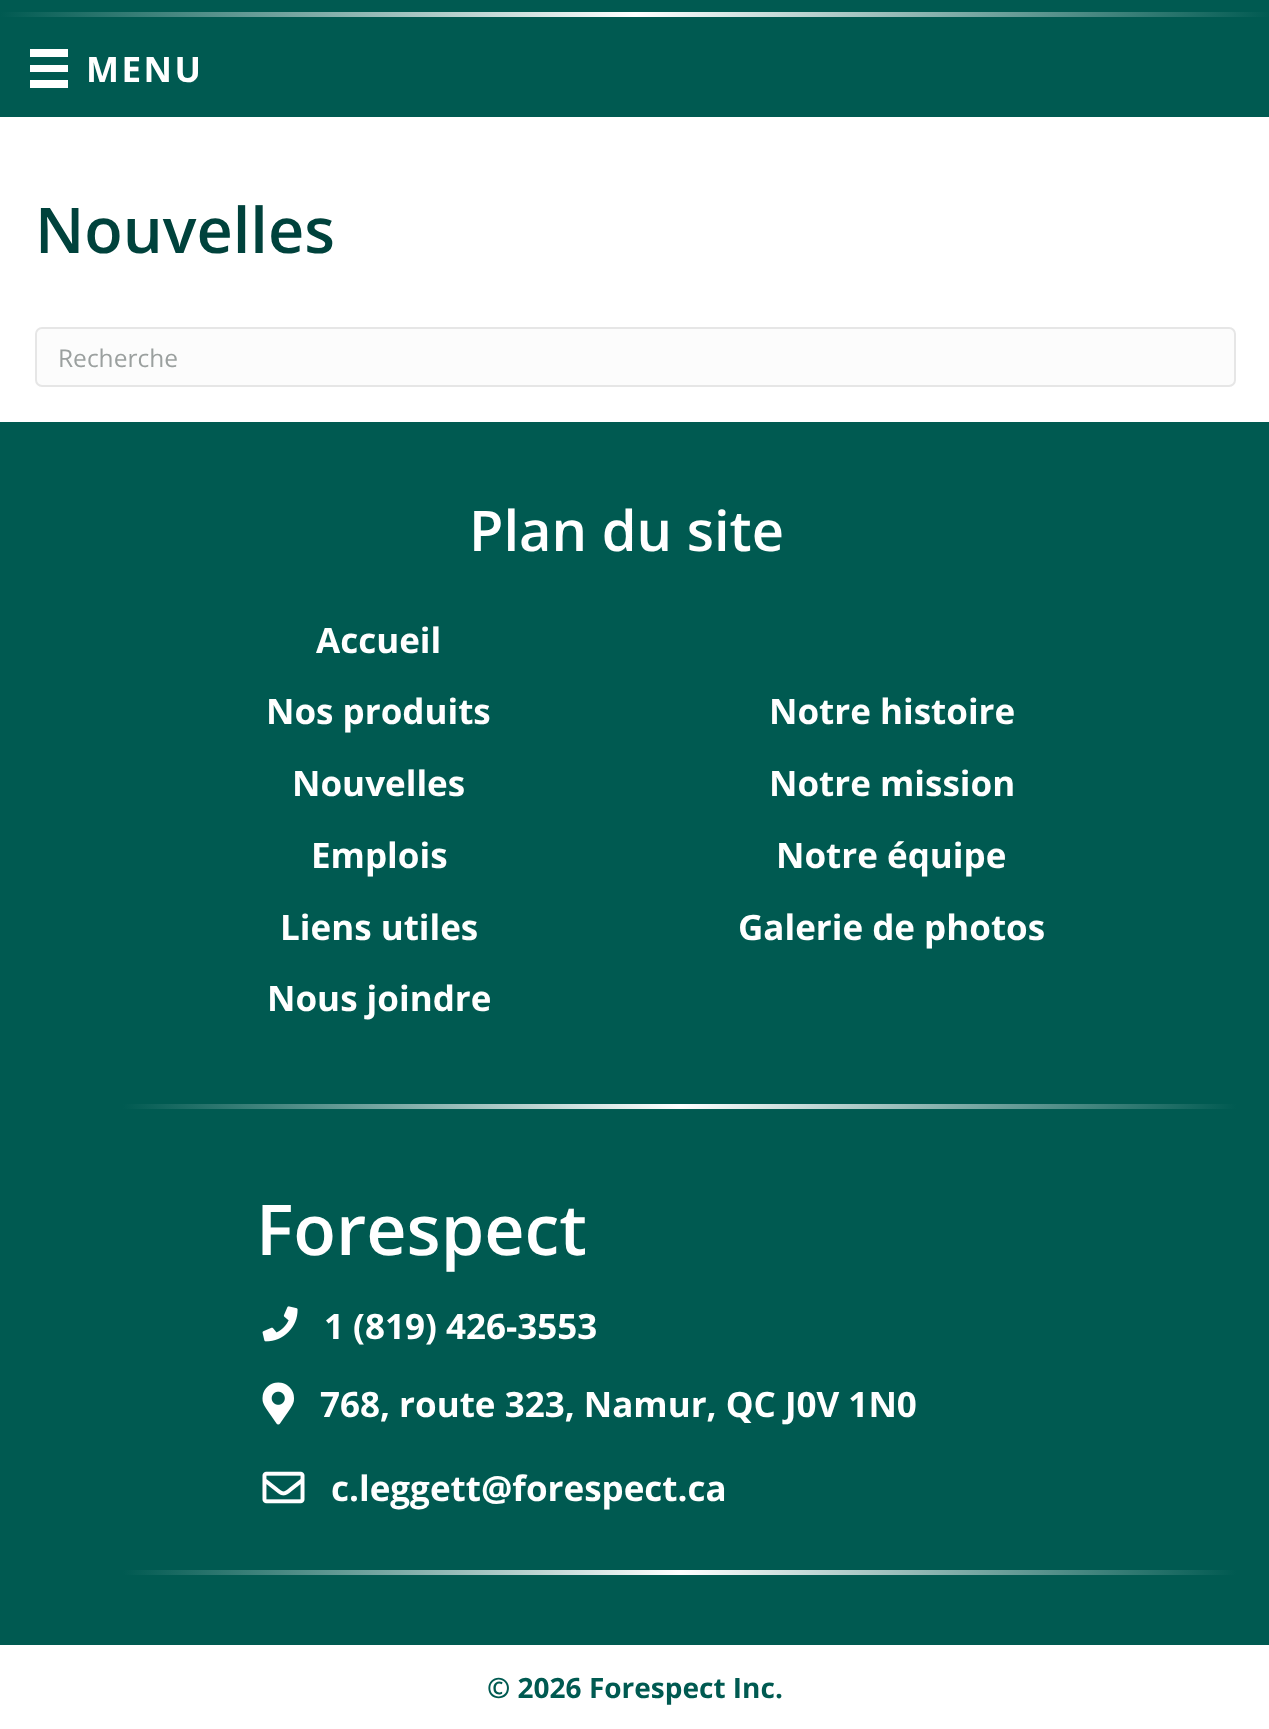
<svg xmlns="http://www.w3.org/2000/svg" width="1269" height="1729">
<defs>
<linearGradient id="g1" gradientUnits="userSpaceOnUse" x1="0" y1="15" x2="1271" y2="15"><stop offset="0" stop-color="#005a51"/><stop offset="0.5" stop-color="#fff"/><stop offset="1" stop-color="#005a51"/></linearGradient>
<linearGradient id="g2" gradientUnits="userSpaceOnUse" x1="123" y1="1107" x2="1236" y2="1107"><stop offset="0" stop-color="#005a51"/><stop offset="0.5" stop-color="#fff"/><stop offset="1" stop-color="#005a51"/></linearGradient>
<linearGradient id="g3" gradientUnits="userSpaceOnUse" x1="123" y1="1572" x2="1236" y2="1572"><stop offset="0" stop-color="#005a51"/><stop offset="0.5" stop-color="#fff"/><stop offset="1" stop-color="#005a51"/></linearGradient>
</defs>
<rect width="100%" height="100%" fill="#fff"/>
<rect width="1269" height="117" fill="#005a51"/>
<rect y="12" width="1269" height="5" fill="url(#g1)"/>
<rect x="30" y="49" width="38" height="8" fill="#fff"/>
<rect x="30" y="65" width="38" height="7" fill="#fff"/>
<rect x="30" y="80" width="38" height="8" fill="#fff"/>
<text x="86" y="82" style="font-family:Open Sans;font-size:35px;font-weight:bold;letter-spacing:2.5px;fill:#fff">MENU</text>
<text x="35" y="253" style="font-family:Open Sans;font-size:63px;font-weight:600;fill:#00423c">Nouvelles</text>
<rect x="36" y="328" width="1199" height="58" rx="6" fill="#fcfcfc" stroke="#e6e6e6" stroke-width="2"/>
<text x="58" y="367" style="font-family:Open Sans;font-size:24.5px;fill:#9ba09f">Recherche</text>
<rect y="422" width="1269" height="1223" fill="#005a51"/>
<text x="469" y="551" style="font-family:Open Sans;font-size:56px;font-weight:600;fill:#fff">Plan du site</text>
<text x="316" y="653" style="font-family:Open Sans;font-size:35px;font-weight:bold;fill:#fff">Accueil</text>
<text x="266" y="724" style="font-family:Open Sans;font-size:35px;font-weight:bold;fill:#fff">Nos produits</text>
<text x="292" y="796" style="font-family:Open Sans;font-size:35px;font-weight:bold;fill:#fff">Nouvelles</text>
<text x="311" y="868" style="font-family:Open Sans;font-size:35px;font-weight:bold;fill:#fff">Emplois</text>
<text x="280" y="940" style="font-family:Open Sans;font-size:35px;font-weight:bold;fill:#fff">Liens utiles</text>
<text x="267" y="1011" style="font-family:Open Sans;font-size:35px;font-weight:bold;fill:#fff">Nous joindre</text>
<text x="769" y="724" style="font-family:Open Sans;font-size:35px;font-weight:bold;fill:#fff">Notre histoire</text>
<text x="769" y="796" style="font-family:Open Sans;font-size:35px;font-weight:bold;fill:#fff">Notre mission</text>
<text x="776" y="868" style="font-family:Open Sans;font-size:35px;font-weight:bold;fill:#fff">Notre équipe</text>
<text x="738" y="940" style="font-family:Open Sans;font-size:35px;font-weight:bold;fill:#fff">Galerie de photos</text>
<rect x="123" y="1104" width="1113" height="5" fill="url(#g2)"/>
<text x="256" y="1255" style="font-family:Open Sans;font-size:70px;font-weight:600;fill:#fff">Forespect</text>
<image x="262" y="1306" width="36" height="36" href="media/1.png"/>
<text x="324" y="1339" style="font-family:Open Sans;font-size:35px;font-weight:bold;fill:#fff">1 (819) 426-3553</text>
<image x="262" y="1382" width="32" height="43" href="media/2.png"/>
<text x="320" y="1417" style="font-family:Open Sans;font-size:35px;font-weight:bold;fill:#fff">768, route 323, Namur, QC J0V 1N0</text>
<image x="262" y="1471" width="43" height="33" href="media/3.png"/>
<text x="331" y="1501" style="font-family:Open Sans;font-size:35px;font-weight:bold;fill:#fff">c.leggett@forespect.ca</text>
<rect x="123" y="1570" width="1113" height="5" fill="url(#g3)"/>
<text x="487" y="1698" style="font-family:Open Sans;font-size:28px;font-weight:bold;fill:#005a51">© 2026 Forespect Inc.</text>
</svg>
